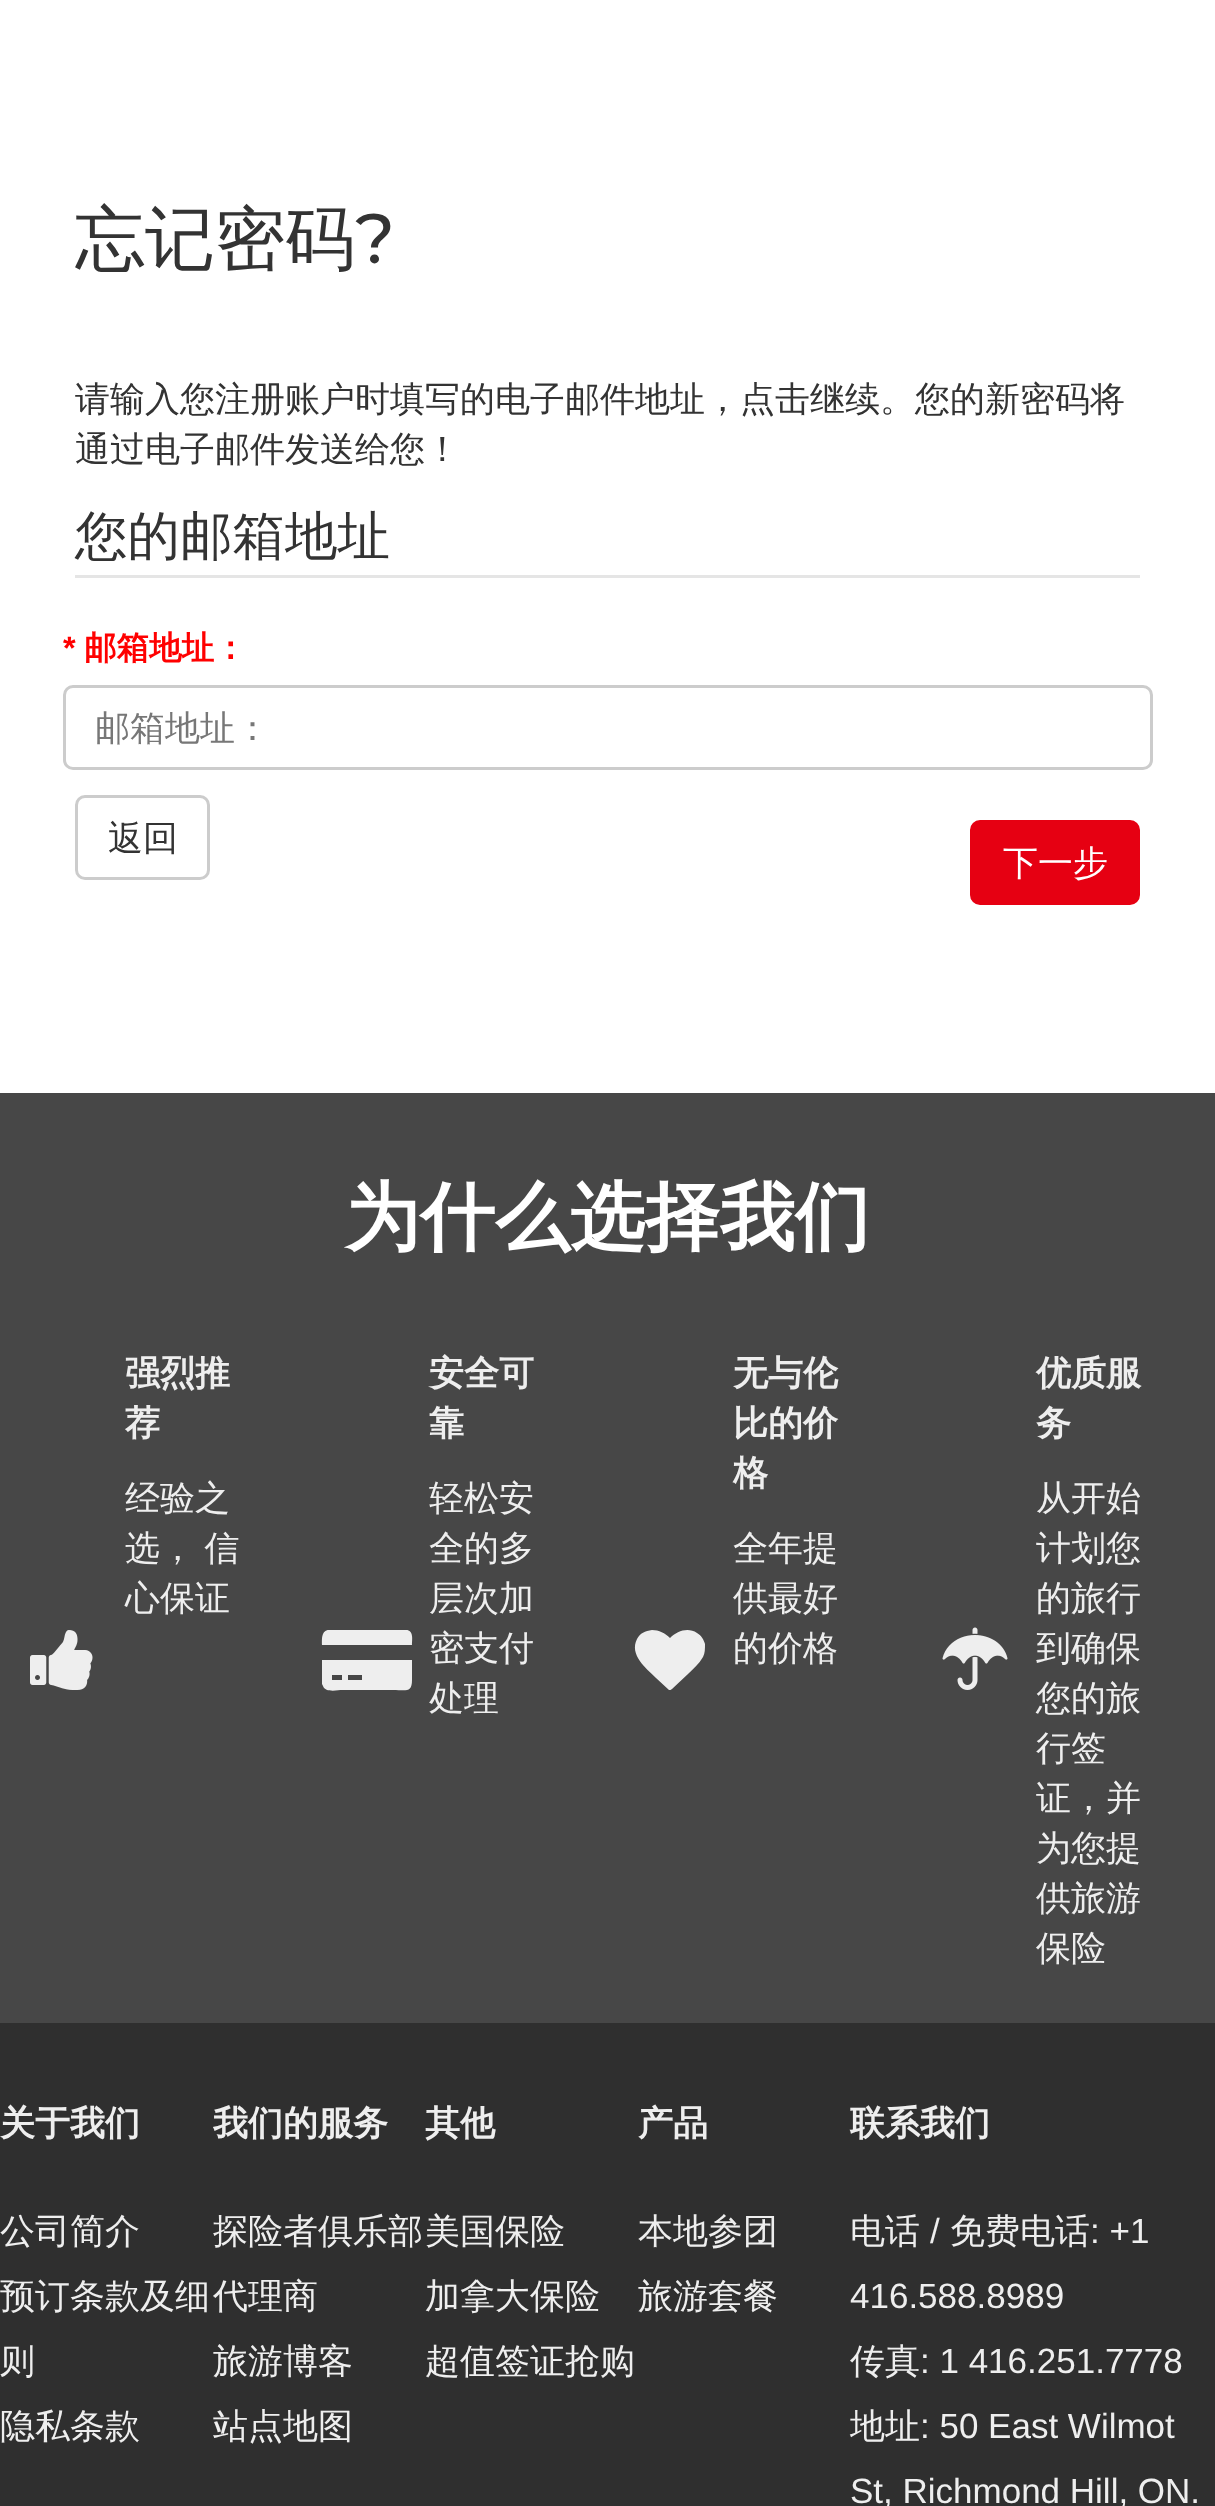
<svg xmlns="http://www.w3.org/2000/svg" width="1215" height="2506">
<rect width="100%" height="100%" fill="#fff"/>
<text x="75" y="263" style="font-family:WenQuanYi Zen Hei;font-size:70px;font-weight:500;fill:#333">忘记密码</text>
<text x="355" y="263" style="font-family:Montserrat;font-size:70px;font-weight:500;fill:#333">?</text>
<text x="75" y="411" style="font-family:WenQuanYi Zen Hei;font-size:35px;font-weight:500;fill:#333">请输入您注册账户时填写的电子邮件地址，点击继续。您的新密码将</text>
<text x="75" y="461" style="font-family:WenQuanYi Zen Hei;font-size:35px;font-weight:500;fill:#333">通过电子邮件发送给您！</text>
<rect x="75" y="575" width="1065" height="3" fill="#e5e5e5"/>
<text x="75" y="554" style="font-family:WenQuanYi Zen Hei;font-size:52.5px;font-weight:500;fill:#333">您的邮箱地址</text>
<text x="63" y="659" style="font-family:Liberation Sans;font-size:32.5px;font-weight:bold;fill:#f00">*</text>
<text x="84" y="659" style="font-family:WenQuanYi Zen Hei;font-size:32.5px;font-weight:bold;fill:#f00">邮箱地址：</text>
<rect x="64.5" y="686.5" width="1087" height="82" rx="8.5" fill="none" stroke="#ccc" stroke-width="3"/>
<text x="95" y="740" style="font-family:WenQuanYi Zen Hei;font-size:35px;font-weight:500;fill:#777">邮箱地址：</text>
<rect x="76.5" y="796.5" width="132" height="82" rx="8.5" fill="none" stroke="#ccc" stroke-width="3"/>
<text x="108" y="850" style="font-family:WenQuanYi Zen Hei;font-size:35px;font-weight:500;fill:#333">返回</text>
<rect x="971.5" y="821.5" width="167" height="82" rx="8.5" fill="#e60012" stroke="#e60012" stroke-width="3"/>
<text x="1003" y="875" style="font-family:WenQuanYi Zen Hei;font-size:35px;font-weight:500;fill:#fff">下一步</text>
<rect y="1093" width="1215" height="930" fill="#474747"/>
<text x="345" y="1243" style="font-family:WenQuanYi Zen Hei;font-size:75px;font-weight:bold;fill:#fff">为什么选择我们</text>
<text x="125" y="1385" style="font-family:WenQuanYi Zen Hei;font-size:35px;font-weight:bold;fill:#eee">强烈推</text>
<text x="125" y="1435" style="font-family:WenQuanYi Zen Hei;font-size:35px;font-weight:bold;fill:#eee">荐</text>
<text x="125" y="1510" style="font-family:WenQuanYi Zen Hei;font-size:35px;font-weight:500;fill:#eee">经验之</text>
<text x="125" y="1560" word-spacing="-1" style="font-family:WenQuanYi Zen Hei;font-size:35px;font-weight:500;fill:#eee">选， 信</text>
<text x="125" y="1610" style="font-family:WenQuanYi Zen Hei;font-size:35px;font-weight:500;fill:#eee">心保证</text>
<image x="30" y="1630" width="63" height="60" href="media/1.png"/>
<path d="M322 1684v-24h90v20c0 13-6 10-19 10h-51c-4 0-17 3-19-4zm26-9v5h14v-5zm-16 0v5h10v-5zm74-45c8 0 6 10 6 15h-90c0-5-1-15 7-15z" fill="#eee"/>
<text x="429" y="1385" style="font-family:WenQuanYi Zen Hei;font-size:35px;font-weight:bold;fill:#eee">安全可</text>
<text x="429" y="1435" style="font-family:WenQuanYi Zen Hei;font-size:35px;font-weight:bold;fill:#eee">靠</text>
<text x="429" y="1510" style="font-family:WenQuanYi Zen Hei;font-size:35px;font-weight:500;fill:#eee">轻松安</text>
<text x="429" y="1560" style="font-family:WenQuanYi Zen Hei;font-size:35px;font-weight:500;fill:#eee">全的多</text>
<text x="429" y="1610" style="font-family:WenQuanYi Zen Hei;font-size:35px;font-weight:500;fill:#eee">层次加</text>
<text x="429" y="1660" style="font-family:WenQuanYi Zen Hei;font-size:35px;font-weight:500;fill:#eee">密支付</text>
<text x="429" y="1710" style="font-family:WenQuanYi Zen Hei;font-size:35px;font-weight:500;fill:#eee">处理</text>
<path d="M672 1689c-1 1-2 1-3 1l-13-12c-10-10-27-23-19-39c3-6 8-8 15-9c7 0 13 3 18 8c7-7 18-11 27-5c4 2 7 7 8 11c0 5 0 9-2 13c-4 7-10 12-15 17z" fill="#eee"/>
<text x="733" y="1385" style="font-family:WenQuanYi Zen Hei;font-size:35px;font-weight:bold;fill:#eee">无与伦</text>
<text x="733" y="1435" style="font-family:WenQuanYi Zen Hei;font-size:35px;font-weight:bold;fill:#eee">比的价</text>
<text x="733" y="1485" style="font-family:WenQuanYi Zen Hei;font-size:35px;font-weight:bold;fill:#eee">格</text>
<text x="733" y="1560" style="font-family:WenQuanYi Zen Hei;font-size:35px;font-weight:500;fill:#eee">全年提</text>
<text x="733" y="1610" style="font-family:WenQuanYi Zen Hei;font-size:35px;font-weight:500;fill:#eee">供最好</text>
<text x="733" y="1660" style="font-family:WenQuanYi Zen Hei;font-size:35px;font-weight:500;fill:#eee">的价格</text>
<image x="942" y="1627" width="66" height="63" href="media/2.png"/>
<text x="1036" y="1385" style="font-family:WenQuanYi Zen Hei;font-size:35px;font-weight:bold;fill:#eee">优质服</text>
<text x="1036" y="1435" style="font-family:WenQuanYi Zen Hei;font-size:35px;font-weight:bold;fill:#eee">务</text>
<text x="1036" y="1510" style="font-family:WenQuanYi Zen Hei;font-size:35px;font-weight:500;fill:#eee">从开始</text>
<text x="1036" y="1560" style="font-family:WenQuanYi Zen Hei;font-size:35px;font-weight:500;fill:#eee">计划您</text>
<text x="1036" y="1610" style="font-family:WenQuanYi Zen Hei;font-size:35px;font-weight:500;fill:#eee">的旅行</text>
<text x="1036" y="1660" style="font-family:WenQuanYi Zen Hei;font-size:35px;font-weight:500;fill:#eee">到确保</text>
<text x="1036" y="1710" style="font-family:WenQuanYi Zen Hei;font-size:35px;font-weight:500;fill:#eee">您的旅</text>
<text x="1036" y="1760" style="font-family:WenQuanYi Zen Hei;font-size:35px;font-weight:500;fill:#eee">行签</text>
<text x="1036" y="1810" style="font-family:WenQuanYi Zen Hei;font-size:35px;font-weight:500;fill:#eee">证，并</text>
<text x="1036" y="1860" style="font-family:WenQuanYi Zen Hei;font-size:35px;font-weight:500;fill:#eee">为您提</text>
<text x="1036" y="1910" style="font-family:WenQuanYi Zen Hei;font-size:35px;font-weight:500;fill:#eee">供旅游</text>
<text x="1036" y="1960" style="font-family:WenQuanYi Zen Hei;font-size:35px;font-weight:500;fill:#eee">保险</text>
<rect y="2023" width="1215" height="483" fill="#2f2f2f"/>
<text x="0" y="2135" style="font-family:WenQuanYi Zen Hei;font-size:35px;font-weight:bold;fill:#eee">关于我们</text>
<text x="0" y="2243" style="font-family:WenQuanYi Zen Hei;font-size:35px;font-weight:500;fill:#eee">公司简介</text>
<text x="0" y="2308" style="font-family:WenQuanYi Zen Hei;font-size:35px;font-weight:500;fill:#eee">预订条款及细</text>
<text x="0" y="2373" style="font-family:WenQuanYi Zen Hei;font-size:35px;font-weight:500;fill:#eee">则</text>
<text x="0" y="2438" style="font-family:WenQuanYi Zen Hei;font-size:35px;font-weight:500;fill:#eee">隐私条款</text>
<text x="213" y="2135" style="font-family:WenQuanYi Zen Hei;font-size:35px;font-weight:bold;fill:#eee">我们的服务</text>
<text x="213" y="2243" style="font-family:WenQuanYi Zen Hei;font-size:35px;font-weight:500;fill:#eee">探险者俱乐部</text>
<text x="213" y="2308" style="font-family:WenQuanYi Zen Hei;font-size:35px;font-weight:500;fill:#eee">代理商</text>
<text x="213" y="2373" style="font-family:WenQuanYi Zen Hei;font-size:35px;font-weight:500;fill:#eee">旅游博客</text>
<text x="213" y="2438" style="font-family:WenQuanYi Zen Hei;font-size:35px;font-weight:500;fill:#eee">站点地图</text>
<text x="425" y="2135" style="font-family:WenQuanYi Zen Hei;font-size:35px;font-weight:bold;fill:#eee">其他</text>
<text x="425" y="2243" style="font-family:WenQuanYi Zen Hei;font-size:35px;font-weight:500;fill:#eee">美国保险</text>
<text x="425" y="2308" style="font-family:WenQuanYi Zen Hei;font-size:35px;font-weight:500;fill:#eee">加拿大保险</text>
<text x="425" y="2373" style="font-family:WenQuanYi Zen Hei;font-size:35px;font-weight:500;fill:#eee">超值签证抢购</text>
<text x="638" y="2135" style="font-family:WenQuanYi Zen Hei;font-size:35px;font-weight:bold;fill:#eee">产品</text>
<text x="638" y="2243" style="font-family:WenQuanYi Zen Hei;font-size:35px;font-weight:500;fill:#eee">本地参团</text>
<text x="638" y="2308" style="font-family:WenQuanYi Zen Hei;font-size:35px;font-weight:500;fill:#eee">旅游套餐</text>
<text x="850" y="2135" style="font-family:WenQuanYi Zen Hei;font-size:35px;font-weight:bold;fill:#eee">联系我们</text>
<text x="850" y="2243" style="font-family:WenQuanYi Zen Hei;font-size:35px;font-weight:500;fill:#eee">电话</text>
<text x="930" y="2243" style="font-family:Liberation Sans;font-size:35px;fill:#eee">/</text>
<text x="950" y="2243" style="font-family:WenQuanYi Zen Hei;font-size:35px;font-weight:500;fill:#eee">免费电话</text>
<text x="1090" y="2243" style="font-family:Liberation Sans;font-size:35px;fill:#eee">: +1</text>
<text x="850" y="2308" style="font-family:Liberation Sans;font-size:35px;fill:#eee">416.588.8989</text>
<text x="850" y="2373" style="font-family:WenQuanYi Zen Hei;font-size:35px;font-weight:500;fill:#eee">传真</text>
<text x="920" y="2373" style="font-family:Liberation Sans;font-size:35px;fill:#eee">: 1 416.251.7778</text>
<text x="850" y="2438" style="font-family:WenQuanYi Zen Hei;font-size:35px;font-weight:500;fill:#eee">地址</text>
<text x="920" y="2438" style="font-family:Liberation Sans;font-size:35px;fill:#eee">: 50 East Wilmot</text>
<text x="850" y="2503" style="font-family:Liberation Sans;font-size:35px;fill:#eee">St, Richmond Hill, ON.</text>
</svg>
